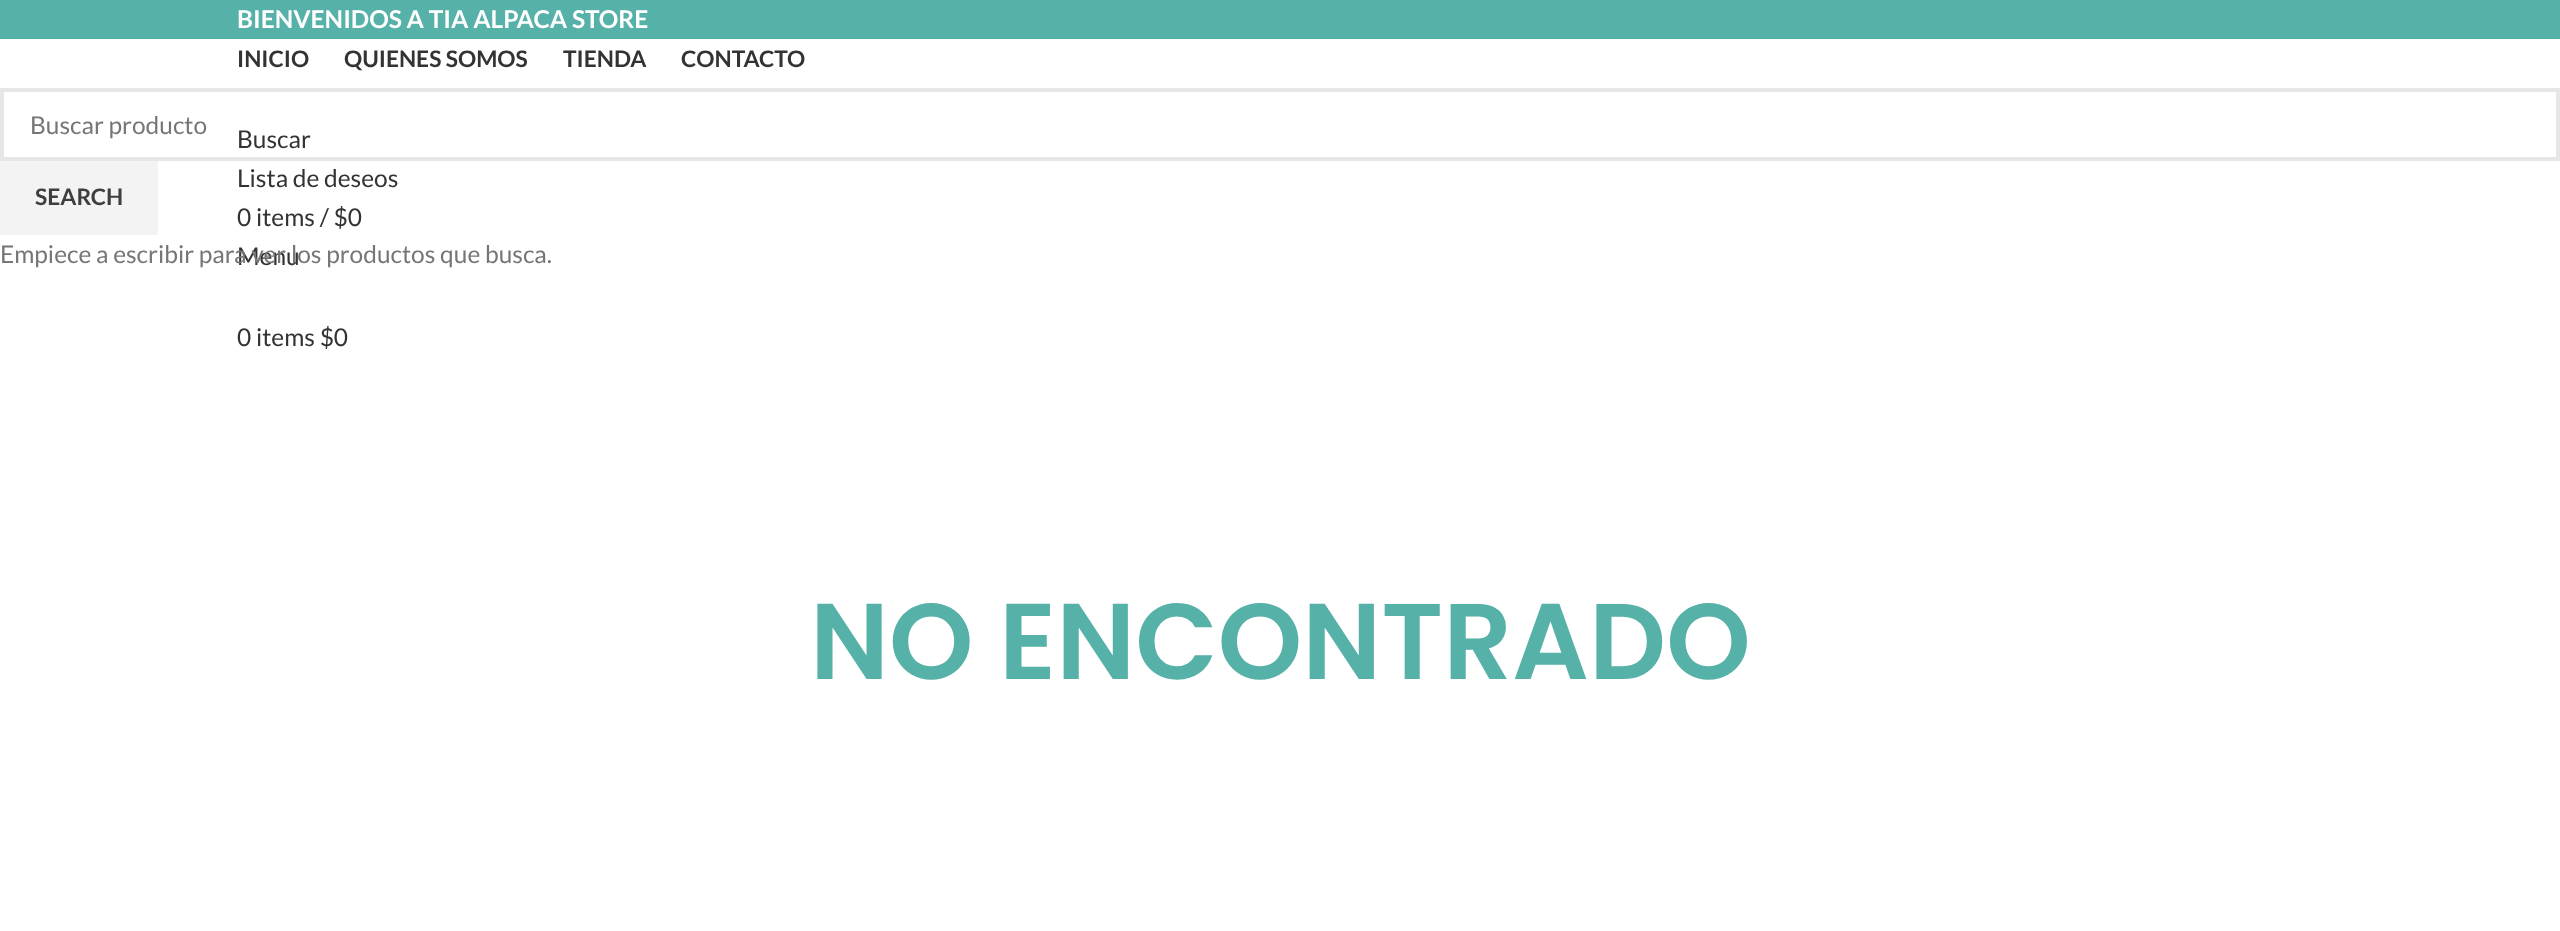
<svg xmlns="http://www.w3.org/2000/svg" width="2560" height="931">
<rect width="100%" height="100%" fill="#fff"/>
<rect width="2560" height="39" fill="#56b1a8"/>
<text x="237" y="28" style="font-family:Lato;font-size:24.5px;font-weight:bold;fill:#fff">BIENVENIDOS A TIA ALPACA STORE</text>
<text x="237" y="67" style="font-family:Lato;font-size:22.75px;font-weight:bold;fill:#333">INICIO</text>
<text x="344" y="67" style="font-family:Lato;font-size:22.75px;font-weight:bold;fill:#333">QUIENES SOMOS</text>
<text x="563" y="67" style="font-family:Lato;font-size:22.75px;font-weight:bold;fill:#333">TIENDA</text>
<text x="681" y="67" style="font-family:Lato;font-size:22.75px;font-weight:bold;fill:#333">CONTACTO</text>
<text x="237" y="148" style="font-family:Lato;font-size:24.5px;fill:#333">Buscar</text>
<text x="237" y="187" style="font-family:Lato;font-size:24.5px;fill:#333">Lista de deseos</text>
<text x="237" y="226" style="font-family:Lato;font-size:24.5px;fill:#333">0 items / $0</text>
<text x="237" y="265" style="font-family:Lato;font-size:24.5px;fill:#333">Menu</text>
<text x="237" y="346" style="font-family:Lato;font-size:24.5px;fill:#333">0 items $0</text>
<text x="810" y="679" style="font-family:Poppins;font-size:107.5px;font-weight:600;fill:#56b1a8">NO ENCONTRADO</text>
<rect x="2" y="90" width="2556" height="69" fill="none" stroke="#e6e6e6" stroke-width="4"/>
<text x="30" y="134" style="font-family:Lato;font-size:24.5px;fill:#767676">Buscar producto</text>
<rect y="161" width="158" height="74" fill="#f3f3f3"/>
<text x="35" y="205" style="font-family:Lato;font-size:22.75px;font-weight:bold;fill:#3e3e3e">SEARCH</text>
<text x="0" y="263" style="font-family:Lato;font-size:24.5px;fill:#767676">Empiece a escribir para ver los productos que busca.</text>
</svg>
